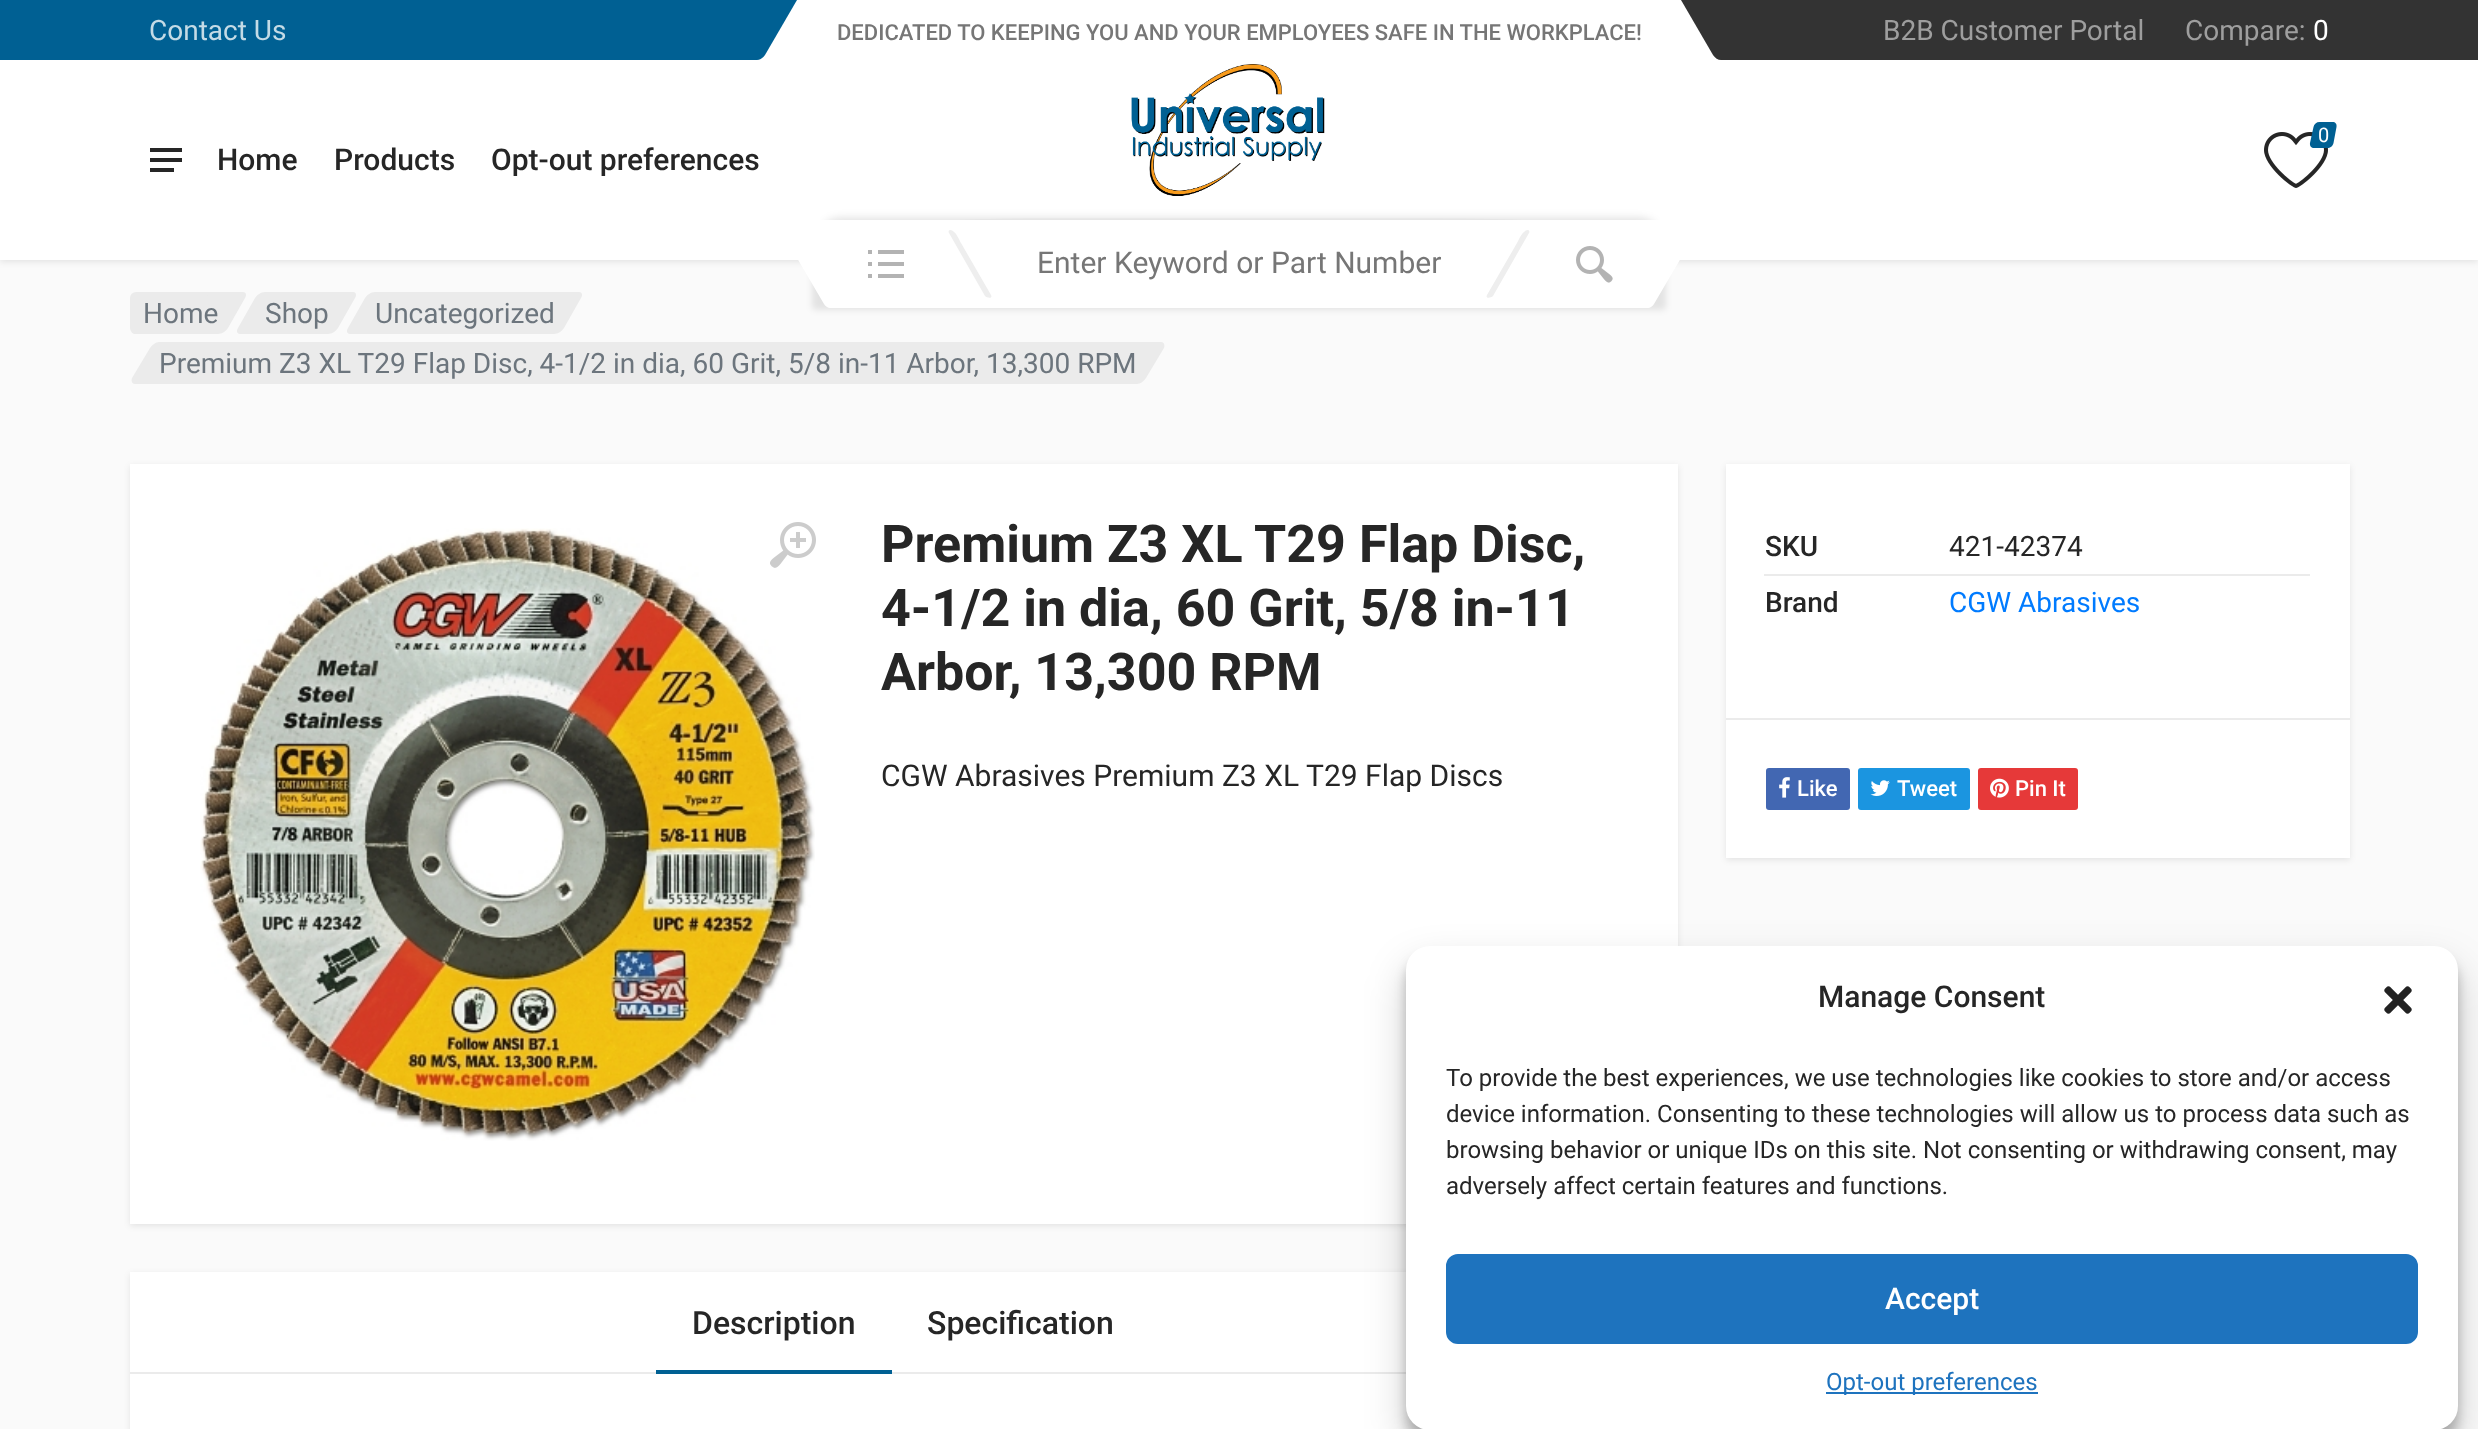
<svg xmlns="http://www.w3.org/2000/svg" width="2478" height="1429">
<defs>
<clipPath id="clip1"><rect x="820" y="200" width="840" height="20"/></clipPath>
<clipPath id="clip2"><rect x="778" y="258" width="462" height="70"/></clipPath>
<clipPath id="clip3"><rect x="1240" y="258" width="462" height="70"/></clipPath>
<clipPath id="clip4"><rect x="1240" y="258" width="462" height="70"/></clipPath>
<clipPath id="clip5"><rect x="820" y="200" width="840" height="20"/></clipPath>
</defs>
<rect width="100%" height="100%" fill="#fafafa"/>
<rect y="2" width="2478" height="260" fill="#00000017" filter="blur(3px)"/>
<rect width="2478" height="260" fill="#fff"/>
<path d="M0 0h797l-32 55c-2 3-5 5-8 5h-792z" fill="#006093"/>
<path d="M1681 0h797l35 60h-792c-3 0-6-2-8-5z" fill="#333"/>
<text x="149" y="40" style="font-family:Roboto;font-size:28px;fill:#c4dbe6">Contact Us</text>
<text x="837" y="40" style="font-family:Roboto;font-size:22px;font-weight:500;fill:#767676">DEDICATED TO KEEPING YOU AND YOUR EMPLOYEES SAFE IN THE WORKPLACE!</text>
<image x="1131" y="64" width="194" height="132" href="media/1.png"/>
<text x="1883" y="40" style="font-family:Roboto;font-size:28px;fill:#9e9e9e">B2B Customer Portal</text>
<text x="2185" y="40" style="font-family:Roboto;font-size:28px;fill:#9e9e9e">Compare:</text>
<text x="2313" y="40" style="font-family:Roboto;font-size:28px;fill:#fff">0</text>
<image x="2264" y="132" width="64" height="56" href="media/2.png"/>
<path d="M2319.5 122h13c3 0 4.5 2 4 5l-3 16c-.5 3-3.5 5-6 5h-13.5c-2.5 0-4.5-2-4-5l3.5-16c.5-3 3-5 6-5z" fill="#006093"/>
<text x="2318" y="142" style="font-family:Roboto;font-size:20px;fill:#fff">0</text>
<image x="150" y="148" width="32" height="24" href="media/3.png"/>
<text x="217" y="170" style="font-family:Roboto;font-size:30px;font-weight:500;fill:#262626">Home</text>
<text x="334" y="170" style="font-family:Roboto;font-size:30px;font-weight:500;fill:#262626">Products</text>
<text x="491" y="170" style="font-family:Roboto;font-size:30px;font-weight:500;fill:#262626">Opt-out preferences</text>
<g clip-path="url(#clip1)">
<path d="M1060 218c-133 0-240 9-240 20v2c0-11 107-20 240-20h360c133 0 240 9 240 20v-2c0-11-107-20-240-20z" fill="#fafafa"/>
</g>
<g clip-path="url(#clip2)">
<rect x="812" y="260" width="462" height="50" rx="4" fill="#00000017" filter="blur(3px)"/>
</g>
<path d="M797 258h462l29 50h-458c-2 0-5-2-6-4z" fill="#fff"/>
<g clip-path="url(#clip3)">
<rect x="1204" y="260" width="462" height="50" rx="4" fill="#00000017" filter="blur(3px)"/>
</g>
<g clip-path="url(#clip4)">
<path d="M1219 258h462l-27 46c-1 2-4 4-6 4h-458z" fill="#fff"/>
</g>
<path d="M159 342h1002c3 0 4 3 3 6l-18 30c-2 3-6 6-9 6h-1002c-3 0-4-3-3-6l18-30c2-3 6-6 9-6z" fill="#ebebeb"/>
<g clip-path="url(#clip5)">
<rect x="820" y="218" width="840" height="120" rx="20" fill="#0000001f" filter="blur(4px)"/>
</g>
<image x="868" y="250" width="36" height="28" href="media/4.png"/>
<path d="M950 230c6 0 10 12 11 13l30 52c2 4-4 3-6 1l-36-63c-1-1 0-3 1-3z" fill="#eee"/>
<path d="M1528 230c1 0 2 2 1 3l-36 63c-2 2-8 3-6-1l30-52c1-1 5-13 11-13z" fill="#eee"/>
<image x="1576" y="246" width="37" height="37" href="media/5.png"/>
<text x="1037" y="273" style="font-family:Roboto;font-size:30px;fill:#767676">Enter Keyword or Part Number</text>
<path d="M159 292h84c3 0 4 3 2 6l-17 30c-2 3-6 6-10 6h-83c-3 0-4-3-3-6l18-30c2-3 6-6 9-6z" fill="#ebebeb"/>
<rect x="130" y="292" width="78" height="42" rx="6" fill="#ebebeb"/>
<text x="143" y="323" style="font-family:Roboto;font-size:28px;fill:#6c757d">Home</text>
<path d="M265 292h88c3 0 4 3 2 6l-17 30c-2 3-6 6-10 6h-88c-3 0-4-3-2-6l17-30c2-3 6-6 10-6z" fill="#ebebeb"/>
<text x="265" y="323" style="font-family:Roboto;font-size:28px;fill:#6c757d">Shop</text>
<path d="M375 292h204c3 0 4 3 2 6l-17 30c-2 3-6 6-10 6h-204c-3 0-4-3-2-6l17-30c2-3 6-6 10-6z" fill="#ebebeb"/>
<text x="375" y="323" style="font-family:Roboto;font-size:28px;fill:#6c757d">Uncategorized</text>
<text x="159" y="373" style="font-family:Roboto;font-size:28px;fill:#6c757d">Premium Z3 XL T29 Flap Disc, 4-1/2 in dia, 60 Grit, 5/8 in-11 Arbor, 13,300 RPM</text>
<rect x="130" y="466" width="1548" height="760" fill="#00000017" filter="blur(3px)"/>
<rect x="130" y="464" width="1548" height="760" fill="#fff"/>
<image x="200" y="528" width="615" height="613" href="media/7.png"/>
<image x="770" y="522" width="46" height="46" href="media/6.png"/>
<text x="881" y="562" style="font-family:Roboto;font-size:52px;font-weight:bold;fill:#262626">Premium Z3 XL T29 Flap Disc,</text>
<text x="881" y="626" style="font-family:Roboto;font-size:52px;font-weight:bold;fill:#262626">4-1/2 in dia, 60 Grit, 5/8 in-11</text>
<text x="881" y="690" style="font-family:Roboto;font-size:52px;font-weight:bold;fill:#262626">Arbor, 13,300 RPM</text>
<rect x="1726" y="466" width="624" height="394" fill="#00000017" filter="blur(3px)"/>
<rect x="1726" y="464" width="624" height="394" fill="#fff"/>
<text x="1765" y="556" style="font-family:Roboto;font-size:28px;font-weight:500;fill:#262626">SKU</text>
<text x="1949" y="556" style="font-family:Roboto;font-size:28px;fill:#262626">421-42374</text>
<text x="1765" y="612" style="font-family:Roboto;font-size:28px;font-weight:500;fill:#262626">Brand</text>
<rect x="1764" y="574" width="546" height="2" fill="#ebebeb"/>
<text x="1949" y="612" style="font-family:Roboto;font-size:28px;fill:#007bff">CGW Abrasives</text>
<rect x="1726" y="718" width="624" height="2" fill="#ebebeb"/>
<rect x="1766" y="768" width="84" height="42" rx="3" fill="#4267b2"/>
<image x="1779" y="777" width="11" height="21" href="media/8.png"/>
<text x="1797" y="796" style="font-family:Roboto;font-size:22px;font-weight:500;fill:#fff">Like</text>
<rect x="1858" y="768" width="112" height="42" rx="3" fill="#1b95e0"/>
<image x="1870" y="780" width="20" height="16" href="media/9.png"/>
<text x="1897" y="796" style="font-family:Roboto;font-size:22px;font-weight:500;fill:#fff">Tweet</text>
<rect x="1978" y="768" width="100" height="42" rx="3" fill="#e63939"/>
<image x="1990" y="778" width="19" height="20" href="media/10.png"/>
<text x="2015" y="796" style="font-family:Roboto;font-size:22px;font-weight:500;fill:#fff">Pin It</text>
<text x="881" y="786" style="font-family:Roboto;font-size:30px;fill:#262626">CGW Abrasives Premium Z3 XL T29 Flap Discs</text>
<rect x="130" y="1274" width="1548" height="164" fill="#00000017" filter="blur(3px)"/>
<rect x="130" y="1272" width="1293" height="157" fill="#fff"/>
<rect x="130" y="1372" width="1276" height="2" fill="#ebebeb"/>
<rect x="656" y="1370" width="236" height="4" fill="#006093"/>
<text x="692" y="1334" style="font-family:Roboto;font-size:32px;font-weight:500;fill:#262626">Description</text>
<text x="927" y="1334" style="font-family:Roboto;font-size:32px;font-weight:500;fill:#262626">Specification</text>
<rect x="1406" y="958" width="1052" height="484" rx="24" fill="#0000003b" filter="blur(6px)"/>
<rect x="1406" y="966" width="1052" height="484" rx="24" fill="#00000030" filter="blur(20px)"/>
<rect x="1406" y="946" width="1052" height="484" rx="24" fill="#fff"/>
<text x="1818" y="1007" style="font-family:Roboto;font-size:30px;font-weight:500;fill:#262626">Manage Consent</text>
<image x="2384" y="986" width="28" height="28" href="media/11.png"/>
<text x="1446" y="1086" style="font-family:Roboto;font-size:24px;fill:#262626">To provide the best experiences, we use technologies like cookies to store and/or access</text>
<text x="1446" y="1122" style="font-family:Roboto;font-size:24px;fill:#262626">device information. Consenting to these technologies will allow us to process data such as</text>
<text x="1446" y="1158" style="font-family:Roboto;font-size:24px;fill:#262626">browsing behavior or unique IDs on this site. Not consenting or withdrawing consent, may</text>
<text x="1446" y="1194" style="font-family:Roboto;font-size:24px;fill:#262626">adversely affect certain features and functions.</text>
<rect x="1447" y="1255" width="970" height="88" rx="11" fill="#1e73be" stroke="#1e73be" stroke-width="2"/>
<text x="1885" y="1309" style="font-family:Roboto;font-size:30px;font-weight:500;fill:#fff">Accept</text>
<rect x="1826" y="1392" width="212" height="2" fill="#1e73be"/>
<text x="1826" y="1390" style="font-family:Roboto;font-size:24px;fill:#1e73be">Opt-out preferences</text>
</svg>
